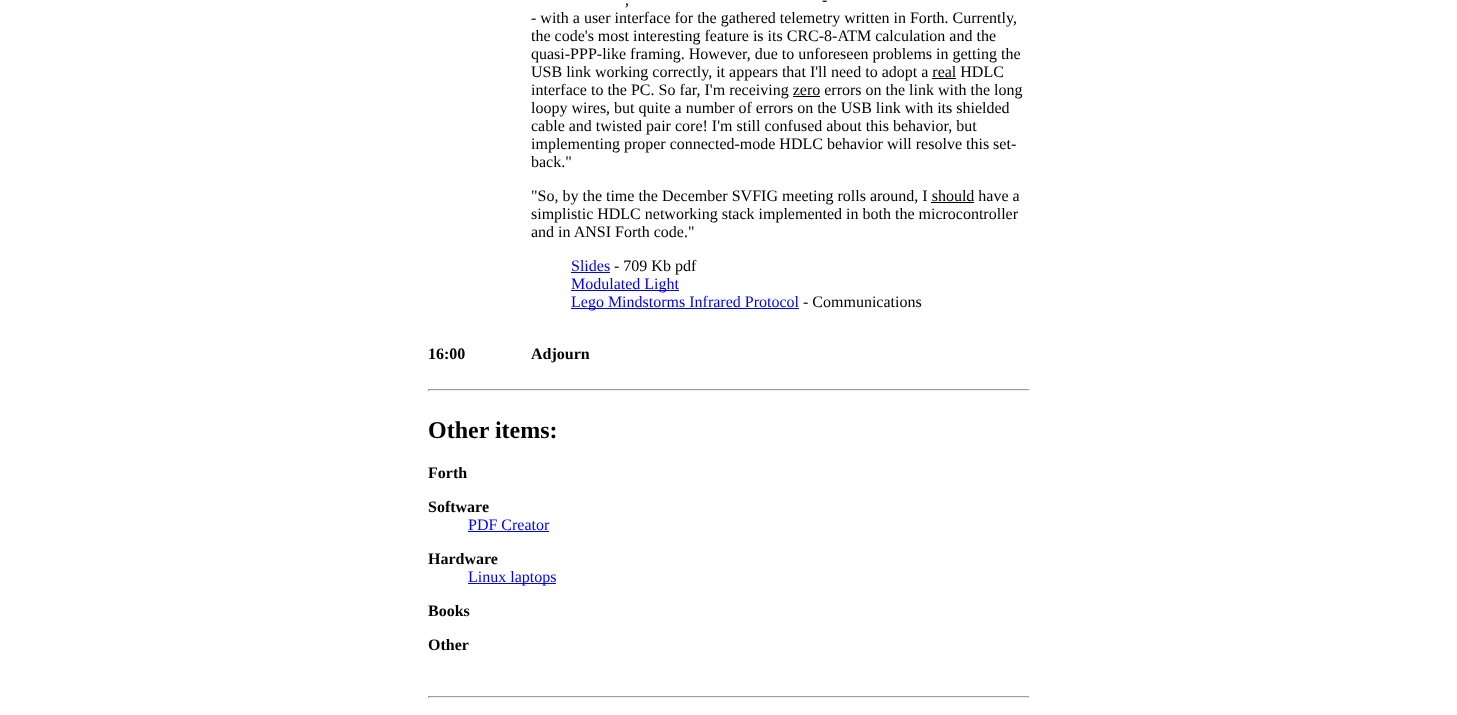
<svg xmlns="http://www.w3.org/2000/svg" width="1457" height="715">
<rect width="100%" height="100%" fill="#fff"/>
<text x="822" y="5" style="font-family:Liberation Serif;font-size:16px;fill:#000">-</text>
<text x="625" y="5" style="font-family:Liberation Serif;font-size:16px;fill:#000">,</text>
<text x="531" y="23" style="font-family:Liberation Serif;font-size:16px;fill:#000">- with a user interface for the gathered telemetry written in Forth. Currently,</text>
<text x="531" y="41" style="font-family:Liberation Serif;font-size:16px;fill:#000">the code's most interesting feature is its CRC-8-ATM calculation and the</text>
<text x="531" y="59" style="font-family:Liberation Serif;font-size:16px;fill:#000">quasi-PPP-like framing. However, due to unforeseen problems in getting the</text>
<text x="531" y="77" style="font-family:Liberation Serif;font-size:16px;fill:#000">USB link working correctly, it appears that I'll need to adopt a real HDLC</text>
<rect x="932" y="78" width="24" height="1" fill="#000"/>
<text x="531" y="95" style="font-family:Liberation Serif;font-size:16px;fill:#000">interface to the PC. So far, I'm receiving zero errors on the link with the long</text>
<rect x="793" y="96" width="27" height="1" fill="#000"/>
<text x="531" y="113" style="font-family:Liberation Serif;font-size:16px;fill:#000">loopy wires, but quite a number of errors on the USB link with its shielded</text>
<text x="531" y="131" style="font-family:Liberation Serif;font-size:16px;fill:#000">cable and twisted pair core! I'm still confused about this behavior, but</text>
<text x="531" y="149" style="font-family:Liberation Serif;font-size:16px;fill:#000">implementing proper connected-mode HDLC behavior will resolve this set-</text>
<text x="531" y="167" style="font-family:Liberation Serif;font-size:16px;fill:#000">back."</text>
<text x="531" y="201" style="font-family:Liberation Serif;font-size:16px;fill:#000">"So, by the time the December SVFIG meeting rolls around, I should have a</text>
<rect x="931" y="202" width="43" height="1" fill="#000"/>
<text x="531" y="219" style="font-family:Liberation Serif;font-size:16px;fill:#000">simplistic HDLC networking stack implemented in both the microcontroller</text>
<text x="531" y="237" style="font-family:Liberation Serif;font-size:16px;fill:#000">and in ANSI Forth code."</text>
<text x="571" y="271" style="font-family:Liberation Serif;font-size:16px;fill:#00e">Slides</text>
<rect x="571" y="272" width="39" height="1" fill="#00e"/>
<text x="614" y="271" style="font-family:Liberation Serif;font-size:16px;fill:#000">- 709 Kb pdf</text>
<rect x="571" y="290" width="108" height="1" fill="#00e"/>
<text x="571" y="289" style="font-family:Liberation Serif;font-size:16px;fill:#00e">Modulated Light</text>
<rect x="571" y="308" width="228" height="1" fill="#00e"/>
<text x="571" y="307" style="font-family:Liberation Serif;font-size:16px;fill:#00e">Lego Mindstorms Infrared Protocol</text>
<text x="803" y="307" style="font-family:Liberation Serif;font-size:16px;fill:#000">- Communications</text>
<text x="428" y="359" style="font-family:Liberation Serif;font-size:16px;font-weight:bold;fill:#000">16:00</text>
<text x="531" y="359" style="font-family:Liberation Serif;font-size:16px;font-weight:bold;fill:#000">Adjourn</text>
<rect x="428" y="389" width="602" height="1" fill="#9f9f9f"/>
<rect x="1029" y="389" width="1" height="2" fill="#eee"/>
<rect x="428" y="390" width="602" height="1" fill="#eee"/>
<rect x="428" y="389" width="1" height="2" fill="#9f9f9f"/>
<text x="428" y="438" style="font-family:Liberation Serif;font-size:24px;font-weight:bold;fill:#000">Other items:</text>
<text x="428" y="478" style="font-family:Liberation Serif;font-size:16px;font-weight:bold;fill:#000">Forth</text>
<text x="428" y="512" style="font-family:Liberation Serif;font-size:16px;font-weight:bold;fill:#000">Software</text>
<text x="468" y="530" style="font-family:Liberation Serif;font-size:16px;fill:#00e">PDF Creator</text>
<rect x="468" y="531" width="81" height="1" fill="#00e"/>
<text x="428" y="564" style="font-family:Liberation Serif;font-size:16px;font-weight:bold;fill:#000">Hardware</text>
<rect x="468" y="583" width="88" height="1" fill="#00e"/>
<text x="468" y="582" style="font-family:Liberation Serif;font-size:16px;fill:#00e">Linux laptops</text>
<text x="428" y="616" style="font-family:Liberation Serif;font-size:16px;font-weight:bold;fill:#000">Books</text>
<text x="428" y="650" style="font-family:Liberation Serif;font-size:16px;font-weight:bold;fill:#000">Other</text>
<rect x="428" y="696" width="602" height="1" fill="#9f9f9f"/>
<rect x="1029" y="696" width="1" height="2" fill="#eee"/>
<rect x="428" y="697" width="602" height="1" fill="#eee"/>
<rect x="428" y="696" width="1" height="2" fill="#9f9f9f"/>
</svg>
